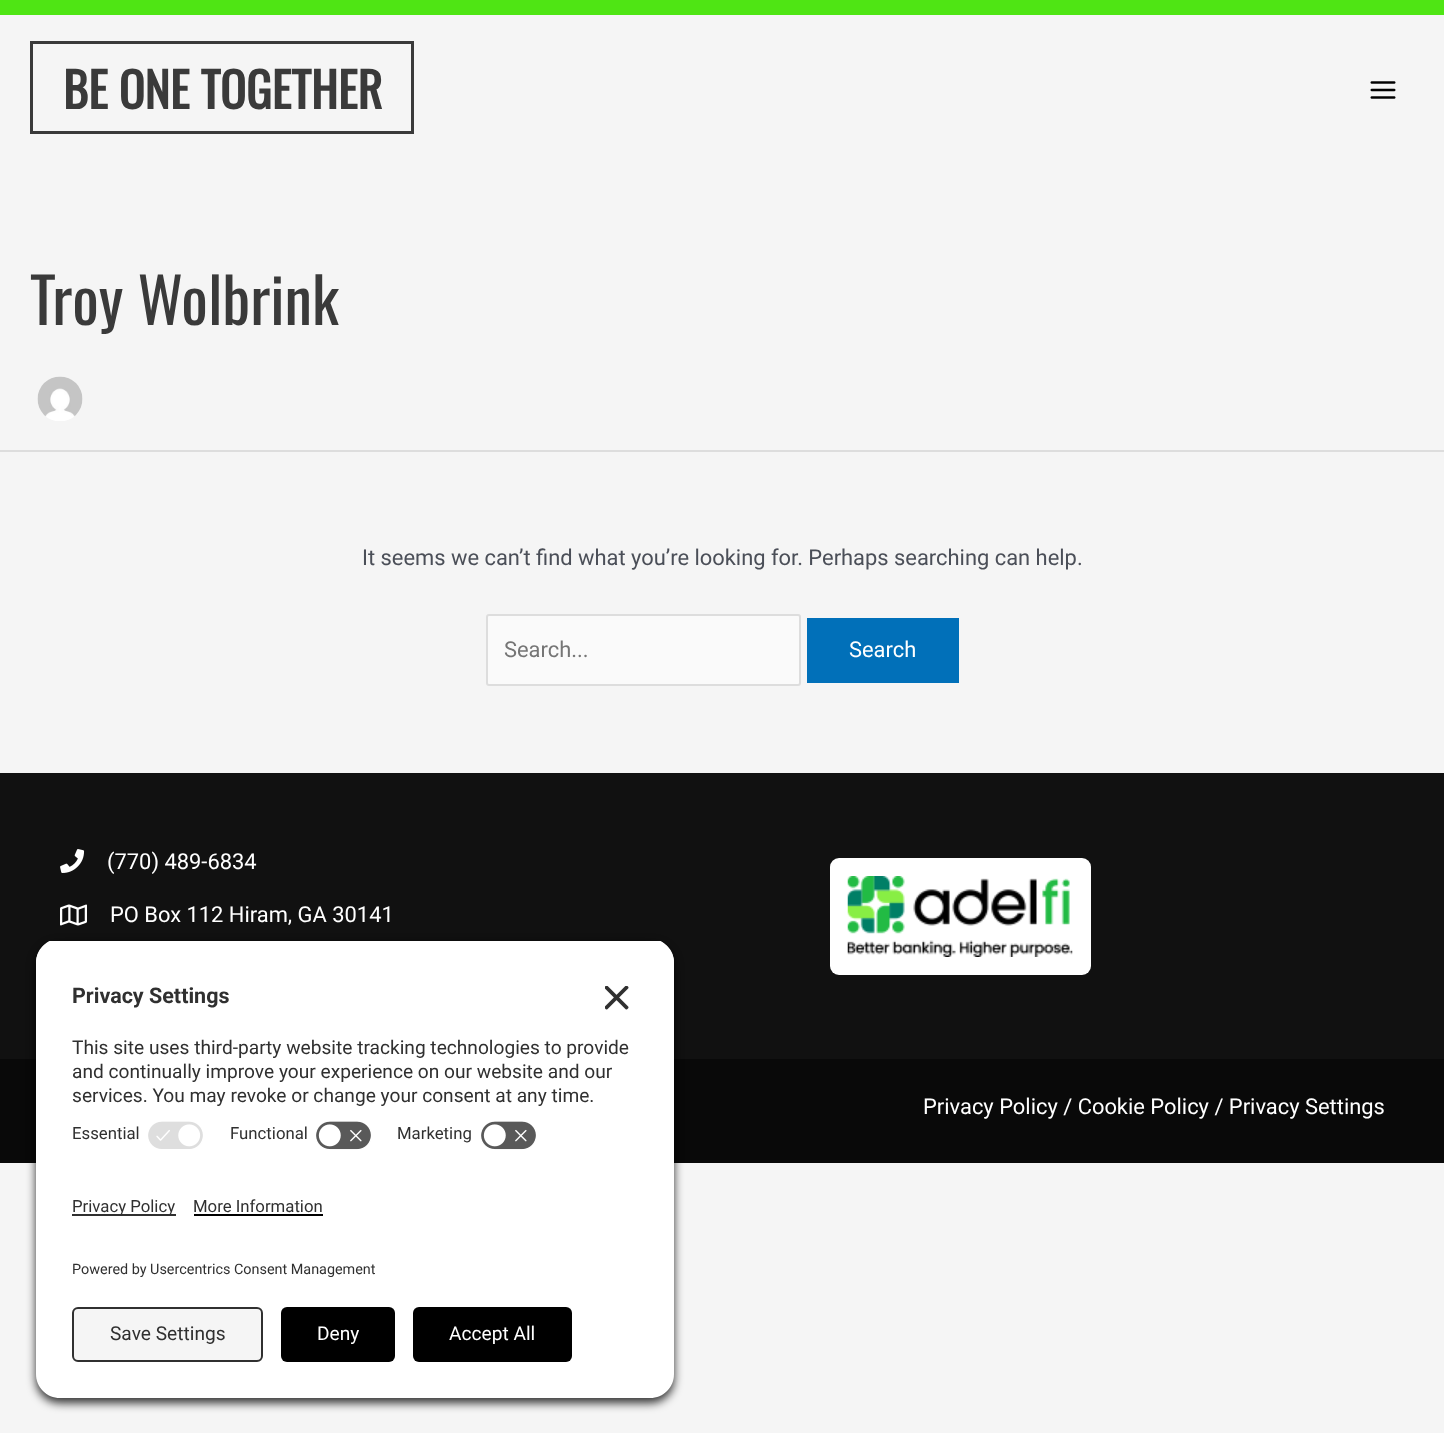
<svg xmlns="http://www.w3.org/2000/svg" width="1444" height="1433">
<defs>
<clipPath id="clip1"><path d="M60 939h590c13.5 0 24 10.5 24 24v212h-638v-212c0-13.5 10.5-24 24-24z"/></clipPath>
</defs>
<rect width="100%" height="100%" fill="#f5f5f5"/>
<rect width="1444" height="15" fill="#4fe514"/>
<rect x="31.5" y="42.5" width="381" height="90" fill="none" stroke="#3a3a3a" stroke-width="3"/>
<text x="63" y="109" style="font-family:Oswald;font-size:48px;font-weight:bold;fill:#3a3a3a">BE ONE TOGETHER</text>
<image x="1370" y="81" width="26" height="18" href="media/1.png"/>
<rect y="450" width="1444" height="2" fill="#ddd"/>
<text x="30" y="325" style="font-family:Oswald;font-size:62.5px;fill:#3a3a3a">Troy Wolbrink</text>
<image x="37" y="376" width="46" height="45" href="media/2.png"/>
<text x="362" y="565" style="font-family:Roboto;font-size:21.9px;fill:#4b4f58">It seems we can’t find what you’re looking for. Perhaps searching can help.</text>
<rect x="487" y="615" width="313" height="70" rx="2" fill="#fafafa" stroke="#ddd" stroke-width="2"/>
<text x="504" y="657" style="font-family:Roboto;font-size:21.9px;fill:#757575">Search...</text>
<rect x="807" y="618" width="152" height="65" fill="#0170b9"/>
<text x="849" y="657" style="font-family:Roboto;font-size:21.9px;fill:#fff">Search</text>
<rect y="773" width="1444" height="286" fill="#111"/>
<image x="60" y="849" width="25" height="24" href="media/3.png"/>
<text x="107" y="869" style="font-family:Roboto;font-size:21.9px;fill:#fff">(770) 489-6834</text>
<image x="60" y="904" width="27" height="22" href="media/4.png"/>
<text x="110" y="922" style="font-family:Roboto;font-size:21.9px;fill:#fff">PO Box 112 Hiram, GA 30141</text>
<rect x="830" y="858" width="261" height="117" rx="9" fill="#fff"/>
<image x="847" y="876" width="226" height="81" href="media/5.png"/>
<rect y="1059" width="1444" height="104" fill="#090909"/>
<text x="923" y="1114" style="font-family:Roboto;font-size:21.9px;fill:#fff">Privacy Policy / Cookie Policy / Privacy Settings</text>
<rect x="36" y="944" width="638" height="459" rx="24" fill="#000000cc" filter="blur(5px)"/>
<g clip-path="url(#clip1)">
<rect x="36" y="941" width="638" height="234" fill="#fff"/>
<rect x="36" y="941" width="638" height="174" fill="#fff"/>
</g>
<text x="72" y="1003" style="font-family:Roboto;font-size:21.5px;font-weight:bold;fill:#303030">Privacy Settings</text>
<image x="605" y="986" width="24" height="24" href="media/6.png"/>
<text x="72" y="1054" style="font-family:Roboto;font-size:19.15px;fill:#303030">This site uses third-party website tracking technologies to provide</text>
<text x="72" y="1078" style="font-family:Roboto;font-size:19.15px;fill:#303030">and continually improve your experience on our website and our</text>
<text x="72" y="1102" style="font-family:Roboto;font-size:19.15px;fill:#303030">services. You may revoke or change your consent at any time.</text>
<text x="72" y="1139" style="font-family:Roboto;font-size:16.75px;fill:#303030">Essential</text>
<image x="148" y="1121" width="55" height="28" href="media/7.png"/>
<text x="230" y="1139" style="font-family:Roboto;font-size:16.75px;fill:#303030">Functional</text>
<image x="316" y="1121" width="55" height="29" href="media/8.png"/>
<text x="397" y="1139" style="font-family:Roboto;font-size:16.75px;fill:#303030">Marketing</text>
<image x="481" y="1121" width="55" height="29" href="media/8.png"/>
<path d="M36 1175h638v199c0 13.5-10.5 24-24 24h-590c-13.5 0-24-10.5-24-24z" fill="#fff"/>
<rect x="72" y="1214" width="104" height="2" fill="#303030"/>
<text x="72" y="1212" style="font-family:Roboto;font-size:16.75px;fill:#303030">Privacy Policy</text>
<text x="193" y="1212" style="font-family:Roboto;font-size:16.75px;fill:#303030">More Information</text>
<rect x="194" y="1214" width="129" height="2" fill="#000"/>
<text x="72" y="1274" style="font-family:Roboto;font-size:14.4px;fill:#303030">Powered by Usercentrics Consent Management</text>
<rect x="73" y="1308" width="189" height="53" rx="5" fill="#f5f5f5" stroke="#303030" stroke-width="2"/>
<text x="110" y="1340" style="font-family:Roboto;font-size:19.15px;fill:#303030">Save Settings</text>
<rect x="281" y="1307" width="114" height="55" rx="6" fill="#000"/>
<text x="317" y="1340" style="font-family:Roboto;font-size:19.15px;fill:#fff">Deny</text>
<rect x="413" y="1307" width="159" height="55" rx="6" fill="#000"/>
<text x="449" y="1340" style="font-family:Roboto;font-size:19.15px;fill:#fff">Accept All</text>
</svg>
